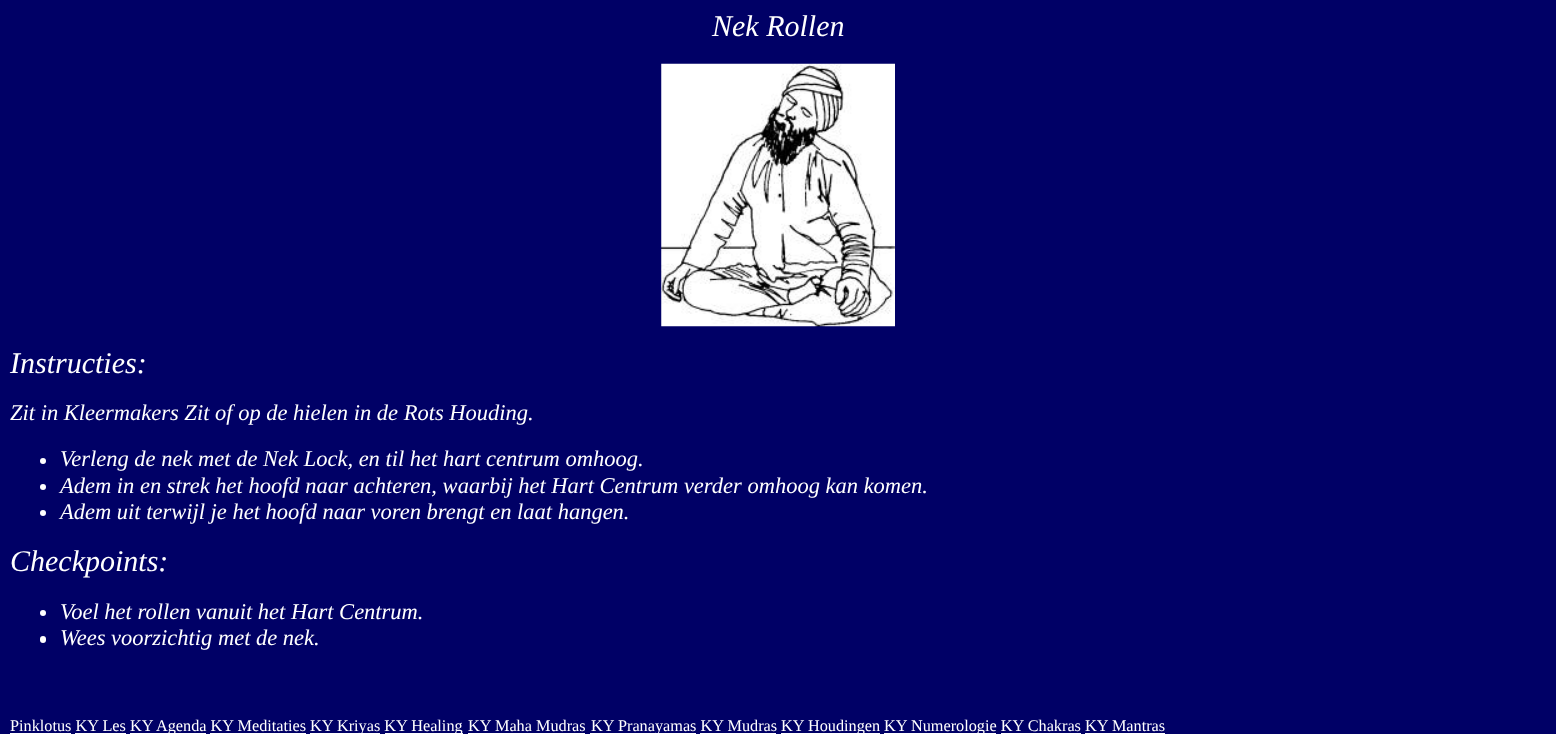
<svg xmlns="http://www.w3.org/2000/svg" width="1556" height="734">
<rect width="100%" height="100%" fill="#006"/>
<text x="712" y="36" style="font-family:Liberation Serif;font-size:30px;font-style:italic;fill:#fff">Nek Rollen</text>
<image x="661" y="63" width="234" height="264" href="media/1.png"/>
<text x="10" y="373" style="font-family:Liberation Serif;font-size:30px;font-style:italic;fill:#fff">Instructies:</text>
<text x="10" y="420" style="font-family:Liberation Serif;font-size:22.5px;font-style:italic;fill:#fff">Zit in Kleermakers Zit of op de hielen in de Rots Houding.</text>
<circle cx="43" cy="461" r="3" fill="#fff"/>
<text x="60" y="466" style="font-family:Liberation Serif;font-size:22.5px;font-style:italic;fill:#fff">Verleng de nek met de Nek Lock, en til het hart centrum omhoog.</text>
<circle cx="43" cy="487" r="3" fill="#fff"/>
<text x="60" y="493" style="font-family:Liberation Serif;font-size:22.5px;font-style:italic;fill:#fff">Adem in en strek het hoofd naar achteren, waarbij het Hart Centrum verder omhoog kan komen.</text>
<circle cx="43" cy="513" r="3" fill="#fff"/>
<text x="60" y="519" style="font-family:Liberation Serif;font-size:22.5px;font-style:italic;fill:#fff">Adem uit terwijl je het hoofd naar voren brengt en laat hangen.</text>
<text x="10" y="571" style="font-family:Liberation Serif;font-size:30px;font-style:italic;fill:#fff">Checkpoints:</text>
<circle cx="43" cy="613" r="3" fill="#fff"/>
<text x="60" y="619" style="font-family:Liberation Serif;font-size:22.5px;font-style:italic;fill:#fff">Voel het rollen vanuit het Hart Centrum.</text>
<rect x="40" y="636" width="6" height="7" rx="3" fill="#fff"/>
<text x="60" y="645" style="font-family:Liberation Serif;font-size:22.5px;font-style:italic;fill:#fff">Wees voorzichtig met de nek.</text>
<text x="10" y="731" style="font-family:Liberation Serif;font-size:16.25px;fill:#fff">Pinklotus KY Les KY</text>
<rect x="10" y="733" width="61" height="1" fill="#fff"/>
<rect x="130" y="733" width="76" height="1" fill="#fff"/>
<text x="156" y="731" style="font-family:Liberation Serif;font-size:16.25px;fill:#fff">Agenda KY Meditaties</text>
<rect x="75" y="733" width="51" height="1" fill="#fff"/>
<rect x="210" y="733" width="96" height="1" fill="#fff"/>
<rect x="310" y="733" width="70" height="1" fill="#fff"/>
<text x="310" y="731" style="font-family:Liberation Serif;font-size:16.25px;fill:#fff">KY Kriyas K</text>
<rect x="385" y="733" width="78" height="1" fill="#fff"/>
<text x="396" y="731" style="font-family:Liberation Serif;font-size:16.25px;fill:#fff">Y Healing</text>
<text x="468" y="731" style="font-family:Liberation Serif;font-size:16.25px;fill:#fff">KY Maha Mudras</text>
<rect x="468" y="733" width="117" height="1" fill="#fff"/>
<rect x="590" y="733" width="106" height="1" fill="#fff"/>
<text x="591" y="731" style="font-family:Liberation Serif;font-size:16.25px;fill:#fff">KY Pranayamas KY Mudras</text>
<rect x="781" y="733" width="99" height="1" fill="#fff"/>
<text x="781" y="731" style="font-family:Liberation Serif;font-size:16.25px;fill:#fff">KY Houdingen</text>
<rect x="884" y="733" width="112" height="1" fill="#fff"/>
<text x="884" y="731" style="font-family:Liberation Serif;font-size:16.25px;fill:#fff">KY Numerologie KY Chakras KY Mantras</text>
<rect x="1001" y="733" width="80" height="1" fill="#fff"/>
<rect x="1085" y="733" width="80" height="1" fill="#fff"/>
<rect x="700" y="733" width="76" height="1" fill="#fff"/>
</svg>
